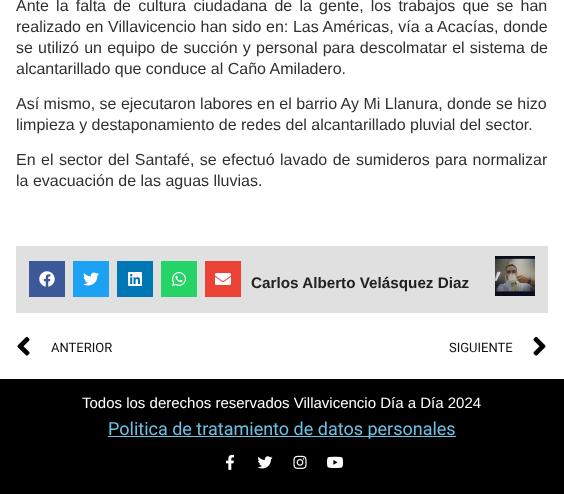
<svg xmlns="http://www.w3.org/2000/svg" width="564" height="494">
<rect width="100%" height="100%" fill="#fff"/>
<text x="16" y="11" word-spacing="2.75" style="font-family:Liberation Sans;font-size:16px;fill:#303030">Ante la falta de cultura ciudadana de la gente, los trabajos que se han</text>
<text x="16" y="32" word-spacing="0.25" style="font-family:Liberation Sans;font-size:16px;fill:#303030">realizado en Villavicencio han sido en: Las Américas, vía a Acacías, donde</text>
<text x="16" y="53" word-spacing="0.75" style="font-family:Liberation Sans;font-size:16px;fill:#303030">se utilizó un equipo de succión y personal para descolmatar el sistema de</text>
<text x="16" y="74" style="font-family:Liberation Sans;font-size:16px;fill:#303030">alcantarillado que conduce al Caño Amiladero.</text>
<text x="16" y="109" style="font-family:Liberation Sans;font-size:16px;fill:#303030">Así mismo, se ejecutaron labores en el barrio Ay Mi Llanura, donde se hizo</text>
<text x="16" y="130" style="font-family:Liberation Sans;font-size:16px;fill:#303030">limpieza y destaponamiento de redes del alcantarillado pluvial del sector.</text>
<text x="16" y="165" word-spacing="1" style="font-family:Liberation Sans;font-size:16px;fill:#303030">En el sector del Santafé, se efectuó lavado de sumideros para normalizar</text>
<text x="16" y="186" style="font-family:Liberation Sans;font-size:16px;fill:#303030">la evacuación de las aguas lluvias.</text>
<rect x="16" y="246" width="532" height="67" fill="#e0e0e0"/>
<rect x="29" y="261" width="36" height="36" fill="#3b5998"/>
<image x="39" y="271" width="16" height="16" href="media/1.png"/>
<rect x="73" y="261" width="36" height="36" fill="#1da1f2"/>
<image x="83" y="272" width="16" height="14" href="media/2.png"/>
<rect x="117" y="261" width="36" height="36" fill="#0077b5"/>
<image x="128" y="272" width="14" height="14" href="media/3.png"/>
<rect x="161" y="261" width="36" height="36" fill="#25d366"/>
<image x="172" y="272" width="14" height="14" href="media/4.png"/>
<rect x="205" y="261" width="36" height="36" fill="#ea4335"/>
<image x="215" y="273" width="16" height="12" href="media/5.png"/>
<text x="251" y="288" style="font-family:Liberation Sans;font-size:15.25px;font-weight:bold;fill:#212121">Carlos Alberto Velásquez Diaz</text>
<image x="495" y="256" width="40" height="40" href="media/6.png"/>
<image x="17" y="336" width="13" height="20" href="media/7.png"/>
<text x="51" y="352" style="font-family:Roboto;font-size:13px;fill:#0f0f0f">ANTERIOR</text>
<text x="449" y="352" style="font-family:Roboto;font-size:13px;fill:#0f0f0f">SIGUIENTE</text>
<image x="533" y="336" width="13" height="20" href="media/8.png"/>
<rect y="379" width="564" height="115" fill="#000"/>
<text x="82" y="408" style="font-family:Liberation Sans;font-size:15px;fill:#fff">Todos los derechos reservados Villavicencio Día a Día 2024</text>
<rect x="108" y="436" width="348" height="1" fill="#6ec1e4"/>
<text x="108" y="435" style="font-family:Roboto;font-size:18px;fill:#6ec1e4">Politica de tratamiento de datos personales</text>
<image x="226" y="454" width="8" height="16" href="media/9.png"/>
<image x="257" y="456" width="16" height="13" href="media/10.png"/>
<image x="293" y="455" width="14" height="14" href="media/11.png"/>
<image x="327" y="456" width="16" height="12" href="media/12.png"/>
</svg>
